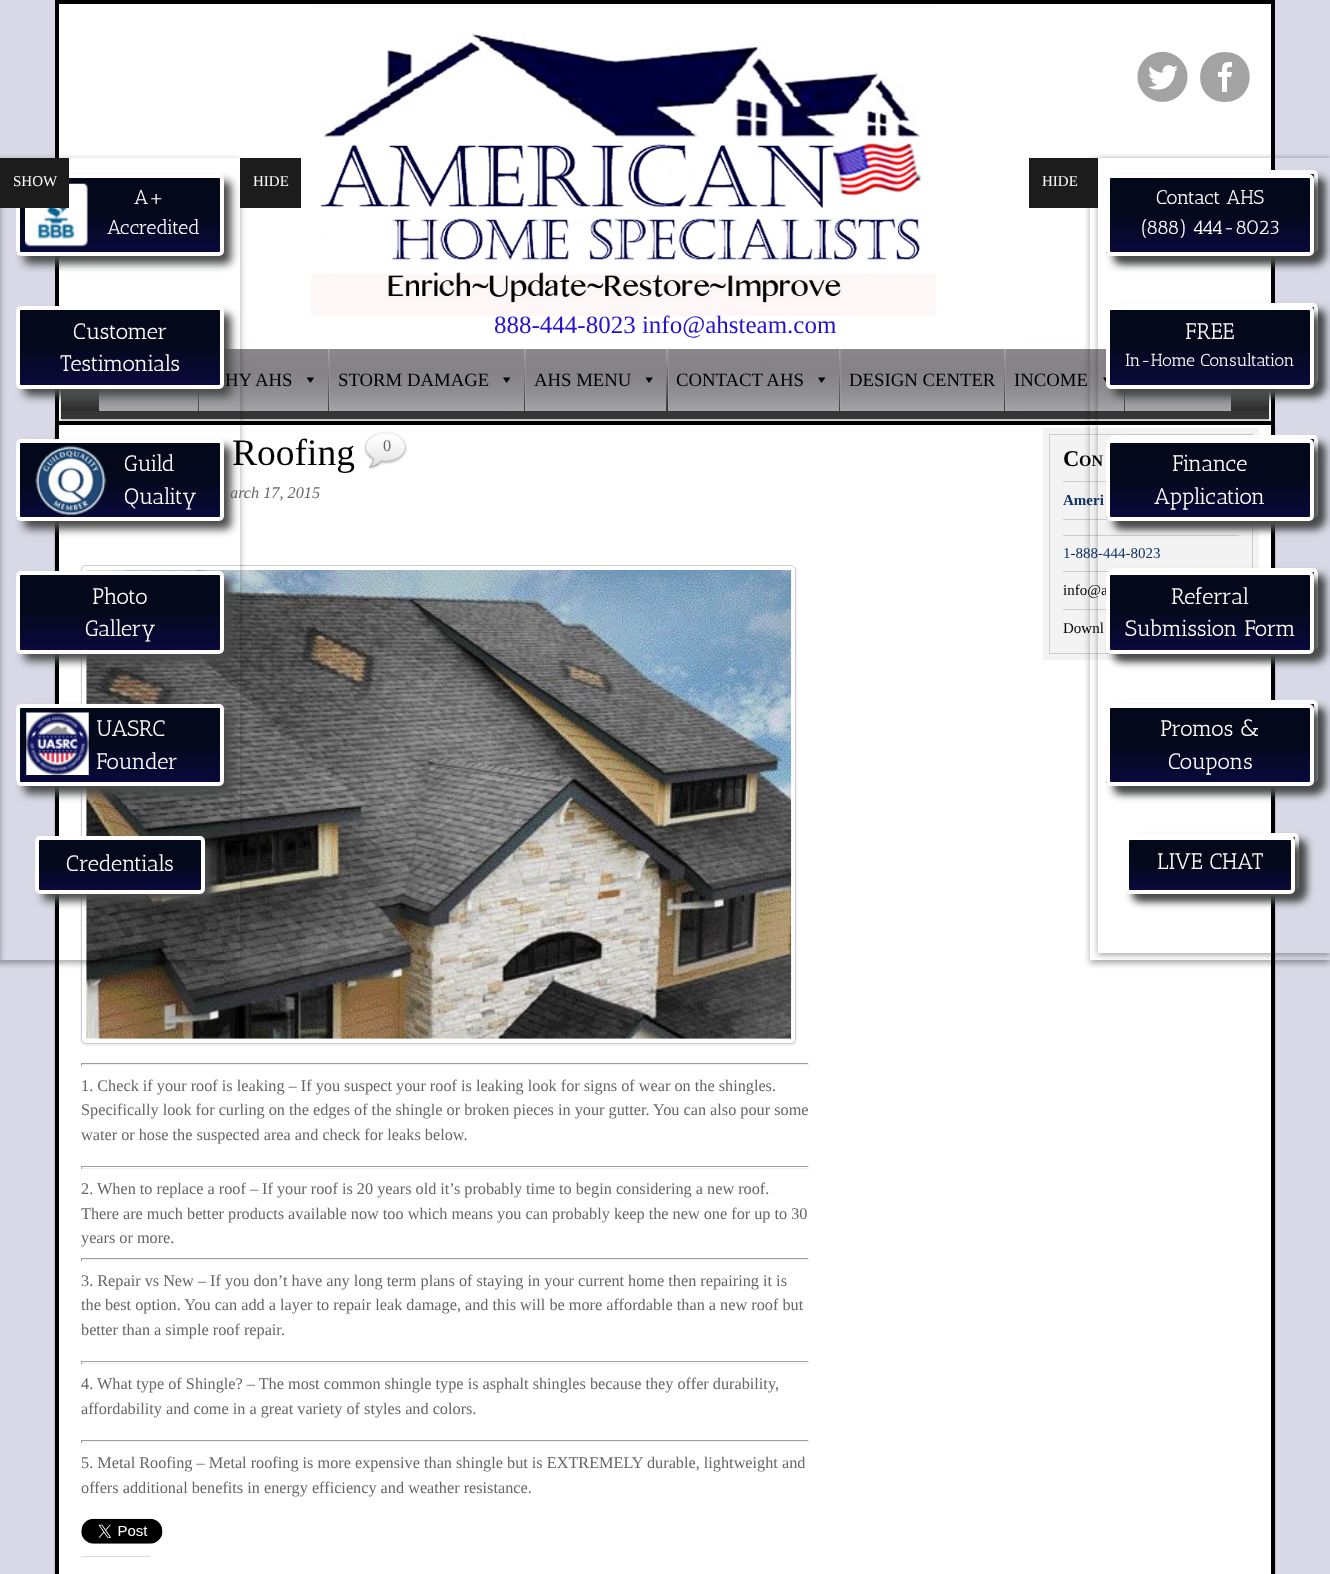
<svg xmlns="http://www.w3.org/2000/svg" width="1330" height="1574">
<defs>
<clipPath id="clip1"><path d="M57 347h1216v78h-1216zm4 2h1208v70h-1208z" clip-rule="evenodd"/></clipPath>
<linearGradient id="g1" gradientUnits="userSpaceOnUse" x1="665" y1="349" x2="665" y2="411"><stop offset="0" stop-color="#a29b9b"/><stop offset="1" stop-color="#2b2b2b"/></linearGradient>
<linearGradient id="g2" gradientUnits="userSpaceOnUse" x1="263" y1="349" x2="263" y2="411"><stop offset="0" stop-color="#7a7880" stop-opacity="0.56"/><stop offset="1" stop-color="#acacb0" stop-opacity="0.95"/></linearGradient>
<linearGradient id="g3" gradientUnits="userSpaceOnUse" x1="148" y1="349" x2="148" y2="411"><stop offset="0" stop-color="#7a7880" stop-opacity="0.56"/><stop offset="1" stop-color="#acacb0" stop-opacity="0.95"/></linearGradient>
<clipPath id="clip2"><path d="M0 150h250v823h-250zm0 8h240v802h-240z" clip-rule="evenodd"/></clipPath>
<linearGradient id="g4" gradientUnits="userSpaceOnUse" x1="20" y1="178" x2="20" y2="253"><stop offset="0.45" stop-color="#03091a"/><stop offset="1" stop-color="#0a093d"/></linearGradient>
<linearGradient id="g5" gradientUnits="userSpaceOnUse" x1="20" y1="310" x2="20" y2="385"><stop offset="0.45" stop-color="#03091a"/><stop offset="1" stop-color="#0a093d"/></linearGradient>
<linearGradient id="g6" gradientUnits="userSpaceOnUse" x1="20" y1="443" x2="20" y2="518"><stop offset="0.45" stop-color="#03091a"/><stop offset="1" stop-color="#0a093d"/></linearGradient>
<linearGradient id="g7" gradientUnits="userSpaceOnUse" x1="20" y1="575" x2="20" y2="650"><stop offset="0.45" stop-color="#03091a"/><stop offset="1" stop-color="#0a093d"/></linearGradient>
<linearGradient id="g8" gradientUnits="userSpaceOnUse" x1="20" y1="708" x2="20" y2="783"><stop offset="0.45" stop-color="#03091a"/><stop offset="1" stop-color="#0a093d"/></linearGradient>
<linearGradient id="g9" gradientUnits="userSpaceOnUse" x1="39" y1="840" x2="39" y2="890"><stop offset="0.45" stop-color="#03091a"/><stop offset="1" stop-color="#0a093d"/></linearGradient>
<linearGradient id="g10" gradientUnits="userSpaceOnUse" x1="1064" y1="349" x2="1064" y2="411"><stop offset="0" stop-color="#7a7880" stop-opacity="0.56"/><stop offset="1" stop-color="#acacb0" stop-opacity="0.95"/></linearGradient>
<linearGradient id="g11" gradientUnits="userSpaceOnUse" x1="1178" y1="349" x2="1178" y2="411"><stop offset="0" stop-color="#7a7880" stop-opacity="0.56"/><stop offset="1" stop-color="#acacb0" stop-opacity="0.95"/></linearGradient>
<clipPath id="clip3"><path d="M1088 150h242v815h-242zm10 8h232v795h-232z" clip-rule="evenodd"/></clipPath>
<linearGradient id="g12" gradientUnits="userSpaceOnUse" x1="1114" y1="174" x2="1114" y2="249"><stop offset="0.45" stop-color="#03091a"/><stop offset="1" stop-color="#0a093d"/></linearGradient>
<linearGradient id="g13" gradientUnits="userSpaceOnUse" x1="1114" y1="306" x2="1114" y2="381"><stop offset="0.45" stop-color="#03091a"/><stop offset="1" stop-color="#0a093d"/></linearGradient>
<linearGradient id="g14" gradientUnits="userSpaceOnUse" x1="1114" y1="439" x2="1114" y2="514"><stop offset="0.45" stop-color="#03091a"/><stop offset="1" stop-color="#0a093d"/></linearGradient>
<linearGradient id="g15" gradientUnits="userSpaceOnUse" x1="1114" y1="571" x2="1114" y2="646"><stop offset="0.45" stop-color="#03091a"/><stop offset="1" stop-color="#0a093d"/></linearGradient>
<linearGradient id="g16" gradientUnits="userSpaceOnUse" x1="1114" y1="704" x2="1114" y2="779"><stop offset="0.45" stop-color="#03091a"/><stop offset="1" stop-color="#0a093d"/></linearGradient>
<linearGradient id="g17" gradientUnits="userSpaceOnUse" x1="1133" y1="836" x2="1133" y2="886"><stop offset="0.45" stop-color="#03091a"/><stop offset="1" stop-color="#0a093d"/></linearGradient>
<linearGradient id="g18" gradientUnits="userSpaceOnUse" x1="426" y1="349" x2="426" y2="411"><stop offset="0" stop-color="#7a7880" stop-opacity="0.56"/><stop offset="1" stop-color="#acacb0" stop-opacity="0.95"/></linearGradient>
<linearGradient id="g19" gradientUnits="userSpaceOnUse" x1="596" y1="349" x2="596" y2="411"><stop offset="0" stop-color="#7a7880" stop-opacity="0.56"/><stop offset="1" stop-color="#acacb0" stop-opacity="0.95"/></linearGradient>
<linearGradient id="g20" gradientUnits="userSpaceOnUse" x1="753" y1="349" x2="753" y2="411"><stop offset="0" stop-color="#7a7880" stop-opacity="0.56"/><stop offset="1" stop-color="#acacb0" stop-opacity="0.95"/></linearGradient>
<linearGradient id="g21" gradientUnits="userSpaceOnUse" x1="922" y1="349" x2="922" y2="411"><stop offset="0" stop-color="#7a7880" stop-opacity="0.56"/><stop offset="1" stop-color="#acacb0" stop-opacity="0.95"/></linearGradient>
<clipPath id="clip4"><path d="M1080 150h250v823h-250zm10 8h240v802h-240z" clip-rule="evenodd"/></clipPath>
<linearGradient id="g22" gradientUnits="userSpaceOnUse" x1="1110" y1="178" x2="1110" y2="253"><stop offset="0.45" stop-color="#03091a"/><stop offset="1" stop-color="#0a093d"/></linearGradient>
<linearGradient id="g23" gradientUnits="userSpaceOnUse" x1="1110" y1="310" x2="1110" y2="385"><stop offset="0.45" stop-color="#03091a"/><stop offset="1" stop-color="#0a093d"/></linearGradient>
<linearGradient id="g24" gradientUnits="userSpaceOnUse" x1="1110" y1="443" x2="1110" y2="518"><stop offset="0.45" stop-color="#03091a"/><stop offset="1" stop-color="#0a093d"/></linearGradient>
<linearGradient id="g25" gradientUnits="userSpaceOnUse" x1="1110" y1="575" x2="1110" y2="650"><stop offset="0.45" stop-color="#03091a"/><stop offset="1" stop-color="#0a093d"/></linearGradient>
<linearGradient id="g26" gradientUnits="userSpaceOnUse" x1="1110" y1="708" x2="1110" y2="783"><stop offset="0.45" stop-color="#03091a"/><stop offset="1" stop-color="#0a093d"/></linearGradient>
<linearGradient id="g27" gradientUnits="userSpaceOnUse" x1="1129" y1="840" x2="1129" y2="890"><stop offset="0.45" stop-color="#03091a"/><stop offset="1" stop-color="#0a093d"/></linearGradient>
</defs>
<rect width="100%" height="100%" fill="#d8d8e6"/>
<rect x="-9" y="160" width="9" height="803" fill="#00000059" filter="blur(3px)"/>
<rect x="57" y="2" width="1216" height="421" fill="#fff" stroke="#000" stroke-width="4"/>
<g clip-path="url(#clip1)">
<rect x="61" y="351" width="1208" height="70" fill="#00000040" filter="blur(1px)"/>
</g>
<rect x="61" y="407" width="1208" height="12" fill="#000000c9"/>
<rect x="61" y="349" width="1208" height="62" rx="4" fill="url(#g1)"/>
<rect x="199" y="389" width="1" height="22" fill="#ffffff4d"/>
<rect x="198" y="389" width="1" height="22" fill="#ffffff1a"/>
<rect x="199" y="349" width="129" height="62" fill="url(#g2)"/>
<rect x="99" y="389" width="99" height="22" fill="url(#g3)"/>
<rect x="55" y="428" width="1220" height="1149" fill="#00000040" filter="blur(1px)"/>
<rect x="59" y="425" width="1212" height="1149" fill="#fff"/>
<rect x="55" y="425" width="4" height="1149" fill="#000"/>
<rect x="81" y="566" width="715" height="479" rx="5" fill="#0000001a" filter="blur(1px)"/>
<rect x="81.5" y="565.5" width="714" height="478" rx="4.5" fill="#fff" stroke="#ccc"/>
<image x="86" y="570" width="706" height="469" href="media/7.png"/>
<g clip-path="url(#clip2)">
<rect y="160" width="240" height="803" fill="#00000059" filter="blur(3px)"/>
</g>
<rect x="24" y="181" width="207" height="83" rx="5" fill="#494a4a" filter="blur(4px)"/>
<rect x="16" y="178" width="208" height="75" fill="url(#g4)"/>
<rect x="18" y="176" width="204" height="78" rx="3" fill="none" stroke="#fff" stroke-width="4"/>
<image x="25" y="183" width="63" height="64" href="media/1.png"/>
<rect y="158" width="69" height="50" fill="#1c1c1c"/>
<text x="13" y="186" style="font-family:Liberation Serif;font-size:15px;fill:#fff">SHOW</text>
<rect x="240" y="158" width="61" height="50" fill="#1c1c1c"/>
<text x="253" y="186" style="font-family:Liberation Serif;font-size:15px;fill:#fff">HIDE</text>
<text x="134" y="204" style="font-family:Antic Slab;font-size:20px;fill:#fff">A+</text>
<text x="107" y="234" style="font-family:Antic Slab;font-size:20px;fill:#fff">Accredited</text>
<rect x="24" y="314" width="207" height="82" rx="5" fill="#494a4a" filter="blur(4px)"/>
<rect x="16" y="310" width="208" height="75" fill="url(#g5)"/>
<rect x="18" y="308" width="204" height="79" rx="3" fill="none" stroke="#fff" stroke-width="4"/>
<text x="73" y="339" style="font-family:Antic Slab;font-size:22.5px;fill:#fff">Customer</text>
<text x="60" y="371" style="font-family:Antic Slab;font-size:22.5px;fill:#fff">Testimonials</text>
<rect x="24" y="446" width="207" height="83" rx="5" fill="#494a4a" filter="blur(4px)"/>
<rect x="16" y="443" width="208" height="75" fill="url(#g6)"/>
<rect x="18" y="441" width="204" height="78" rx="3" fill="none" stroke="#fff" stroke-width="4"/>
<image x="35" y="446" width="72" height="70" href="media/2.png"/>
<text x="124" y="471" style="font-family:Antic Slab;font-size:22.5px;fill:#fff">Guild</text>
<text x="124" y="504" style="font-family:Antic Slab;font-size:22.5px;fill:#fff">Quality</text>
<rect x="24" y="579" width="207" height="82" rx="5" fill="#494a4a" filter="blur(4px)"/>
<rect x="16" y="575" width="208" height="75" fill="url(#g7)"/>
<rect x="18" y="573" width="204" height="79" rx="3" fill="none" stroke="#fff" stroke-width="4"/>
<text x="92" y="604" style="font-family:Antic Slab;font-size:22.5px;fill:#fff">Photo</text>
<text x="85" y="636" style="font-family:Antic Slab;font-size:22.5px;fill:#fff">Gallery</text>
<rect x="24" y="711" width="207" height="83" rx="5" fill="#494a4a" filter="blur(4px)"/>
<rect x="16" y="708" width="208" height="75" fill="url(#g8)"/>
<rect x="18" y="706" width="204" height="78" rx="3" fill="none" stroke="#fff" stroke-width="4"/>
<image x="26" y="712" width="63" height="63" href="media/3.png"/>
<text x="96" y="736" style="font-family:Antic Slab;font-size:22.5px;fill:#fff">UASRC</text>
<text x="96" y="769" style="font-family:Antic Slab;font-size:22.5px;fill:#fff">Founder</text>
<rect x="43" y="844" width="170" height="57" rx="5" fill="#494a4a" filter="blur(4px)"/>
<rect x="35" y="840" width="170" height="50" fill="url(#g9)"/>
<rect x="37" y="838" width="166" height="54" rx="3" fill="none" stroke="#fff" stroke-width="4"/>
<text x="66" y="871" style="font-family:Antic Slab;font-size:22.5px;fill:#fff">Credentials</text>
<rect x="1005" y="349" width="1" height="62" fill="#ffffff4d"/>
<rect x="1005" y="349" width="119" height="62" fill="url(#g10)"/>
<path d="M1110.5 377.5l-4 5.5l-3.5-5.5z" fill="#000"/>
<rect x="1125" y="389" width="1" height="22" fill="#ffffff4d"/>
<rect x="1124" y="389" width="1" height="22" fill="#ffffff1a"/>
<rect x="1125" y="389" width="106" height="22" fill="url(#g11)"/>
<rect x="1271" y="425" width="4" height="1149" fill="#000"/>
<rect x="1043" y="428" width="216" height="232" fill="#f3f3f3"/>
<rect x="1049.5" y="434.5" width="203" height="219" fill="none" stroke="#ccc"/>
<rect x="1063" y="481" width="43" height="1" fill="#ccc"/>
<rect x="1063" y="519" width="45" height="1" fill="#ccc"/>
<rect x="1063" y="535" width="176" height="1" fill="#ccc"/>
<rect x="1063" y="571" width="48" height="1" fill="#ccc"/>
<rect x="1063" y="609" width="43" height="1" fill="#ccc"/>
<g clip-path="url(#clip3)">
<rect x="1098" y="160" width="232" height="795" fill="#00000059" filter="blur(3px)"/>
</g>
<rect x="1118" y="178" width="207" height="82" rx="5" fill="#494a4a" filter="blur(4px)"/>
<rect x="1110" y="174" width="208" height="75" fill="url(#g12)"/>
<rect x="1112" y="172" width="204" height="79" rx="3" fill="none" stroke="#fff" stroke-width="4"/>
<rect x="1118" y="310" width="207" height="83" rx="5" fill="#494a4a" filter="blur(4px)"/>
<rect x="1110" y="306" width="208" height="75" fill="url(#g13)"/>
<rect x="1112" y="305" width="204" height="78" rx="3" fill="none" stroke="#fff" stroke-width="4"/>
<rect x="1118" y="443" width="207" height="82" rx="5" fill="#494a4a" filter="blur(4px)"/>
<rect x="1110" y="439" width="208" height="75" fill="url(#g14)"/>
<rect x="1112" y="437" width="204" height="79" rx="3" fill="none" stroke="#fff" stroke-width="4"/>
<rect x="1118" y="575" width="207" height="83" rx="5" fill="#494a4a" filter="blur(4px)"/>
<rect x="1110" y="571" width="208" height="75" fill="url(#g15)"/>
<rect x="1112" y="570" width="204" height="78" rx="3" fill="none" stroke="#fff" stroke-width="4"/>
<rect x="1118" y="708" width="207" height="82" rx="5" fill="#494a4a" filter="blur(4px)"/>
<rect x="1110" y="704" width="208" height="75" fill="url(#g16)"/>
<rect x="1112" y="702" width="204" height="79" rx="3" fill="none" stroke="#fff" stroke-width="4"/>
<rect x="1136" y="840" width="170" height="58" rx="5" fill="#494a4a" filter="blur(4px)"/>
<rect x="1129" y="836" width="170" height="50" fill="url(#g17)"/>
<rect x="1131" y="835" width="166" height="53" rx="3" fill="none" stroke="#fff" stroke-width="4"/>
<rect x="1090" y="158" width="8" height="50" fill="#1c1c1c"/>
<image x="311" y="6" width="625" height="310" href="media/4.png"/>
<image x="1137" y="51" width="51" height="51" href="media/5.png"/>
<path d="M1225 52c-33 0-33 50 0 50c33 0 33-50 0-50zm6 25h-4v15h-5v-15h-4v-5h4c0-9 1-10 10-10v5c-5 0-5 0-5 5h5z" fill="#a3a3a3"/>
<text x="494" y="333" style="font-family:Liberation Serif;font-size:25px;fill:#2710d1">888-444-8023 info@ahsteam.com</text>
<text x="225" y="386" style="font-family:Liberation Serif;font-size:18.75px;fill:#000">HY AHS</text>
<path d="M314 377.5l-3.5 5.5l-4-5.5z" fill="#000"/>
<rect x="329" y="349" width="1" height="62" fill="#ffffff4d"/>
<rect x="328" y="349" width="1" height="62" fill="#ffffff1a"/>
<rect x="329" y="349" width="195" height="62" fill="url(#g18)"/>
<text x="338" y="386" style="font-family:Liberation Serif;font-size:18.75px;fill:#000">STORM DAMAGE</text>
<path d="M510.5 377.5l-4 5.5l-3.5-5.5z" fill="#000"/>
<rect x="525" y="349" width="1" height="62" fill="#ffffff4d"/>
<rect x="524" y="349" width="1" height="62" fill="#ffffff1a"/>
<rect x="525" y="349" width="141" height="62" fill="url(#g19)"/>
<text x="534" y="386" style="font-family:Liberation Serif;font-size:18.75px;fill:#000">AHS MENU</text>
<path d="M653 377.5l-4 5.5l-3.5-5.5z" fill="#000"/>
<rect x="668" y="349" width="1" height="62" fill="#ffffff4d"/>
<rect x="666" y="349" width="1" height="62" fill="#ffffff1a"/>
<rect x="668" y="349" width="171" height="62" fill="url(#g20)"/>
<text x="676" y="386" style="font-family:Liberation Serif;font-size:18.75px;fill:#000">CONTACT AHS</text>
<path d="M825.5 377.5l-4 5.5l-3.5-5.5z" fill="#000"/>
<rect x="840" y="349" width="1" height="62" fill="#ffffff4d"/>
<rect x="839" y="349" width="1" height="62" fill="#ffffff1a"/>
<rect x="840" y="349" width="164" height="62" fill="url(#g21)"/>
<text x="849" y="386" style="font-family:Liberation Serif;font-size:18.75px;fill:#000">DESIGN CENTER</text>
<rect x="1004" y="349" width="1" height="62" fill="#ffffff1a"/>
<text x="1014" y="386" style="font-family:Liberation Serif;font-size:18.75px;fill:#000">INCOME</text>
<text x="232" y="465" style="font-family:Liberation Serif;font-size:37.5px;fill:#000">Roofing</text>
<image x="364" y="431" width="43" height="39" href="media/6.png"/>
<text x="383" y="451" style="font-family:Liberation Serif;font-size:16.25px;fill:#666">0</text>
<text x="230" y="498" style="font-family:Liberation Serif;font-size:16.25px;font-style:italic;fill:#666">arch 17, 2015</text>
<rect x="81" y="1063" width="728" height="1" fill="#9f9f9f"/>
<rect x="808" y="1063" width="1" height="3" fill="#eee"/>
<rect x="81" y="1064" width="728" height="1" fill="#eee"/>
<rect x="81" y="1063" width="1" height="3" fill="#9f9f9f"/>
<text x="81" y="1091" style="font-family:Liberation Serif;font-size:16.25px;fill:#666">1. Check if your roof is leaking – If you suspect your roof is leaking look for signs of wear on the shingles.</text>
<text x="81" y="1115" style="font-family:Liberation Serif;font-size:16.25px;fill:#666">Specifically look for curling on the edges of the shingle or broken pieces in your gutter. You can also pour some</text>
<text x="81" y="1140" style="font-family:Liberation Serif;font-size:16.25px;fill:#666">water or hose the suspected area and check for leaks below.</text>
<rect x="81" y="1166" width="728" height="1" fill="#9f9f9f"/>
<rect x="808" y="1166" width="1" height="3" fill="#eee"/>
<rect x="81" y="1168" width="728" height="1" fill="#eee"/>
<rect x="81" y="1166" width="1" height="3" fill="#9f9f9f"/>
<text x="81" y="1194" style="font-family:Liberation Serif;font-size:16.25px;fill:#666">2. When to replace a roof – If your roof is 20 years old it’s probably time to begin considering a new roof.</text>
<text x="81" y="1219" style="font-family:Liberation Serif;font-size:16.25px;fill:#666">There are much better products available now too which means you can probably keep the new one for up to 30</text>
<text x="81" y="1243" style="font-family:Liberation Serif;font-size:16.25px;fill:#666">years or more.</text>
<rect x="81" y="1258" width="728" height="1" fill="#9f9f9f"/>
<rect x="808" y="1258" width="1" height="3" fill="#eee"/>
<rect x="81" y="1259" width="728" height="1" fill="#eee"/>
<rect x="81" y="1258" width="1" height="3" fill="#9f9f9f"/>
<text x="81" y="1286" style="font-family:Liberation Serif;font-size:16.25px;fill:#666">3. Repair vs New – If you don’t have any long term plans of staying in your current home then repairing it is</text>
<text x="81" y="1310" style="font-family:Liberation Serif;font-size:16.25px;fill:#666">the best option. You can add a layer to repair leak damage, and this will be more affordable than a new roof but</text>
<text x="81" y="1335" style="font-family:Liberation Serif;font-size:16.25px;fill:#666">better than a simple roof repair.</text>
<rect x="81" y="1361" width="728" height="1" fill="#9f9f9f"/>
<rect x="808" y="1361" width="1" height="3" fill="#eee"/>
<rect x="81" y="1363" width="728" height="1" fill="#eee"/>
<rect x="81" y="1361" width="1" height="3" fill="#9f9f9f"/>
<text x="81" y="1389" style="font-family:Liberation Serif;font-size:16.25px;fill:#666">4. What type of Shingle? – The most common shingle type is asphalt shingles because they offer durability,</text>
<text x="81" y="1414" style="font-family:Liberation Serif;font-size:16.25px;fill:#666">affordability and come in a great variety of styles and colors.</text>
<rect x="81" y="1440" width="728" height="1" fill="#9f9f9f"/>
<rect x="808" y="1440" width="1" height="3" fill="#eee"/>
<rect x="81" y="1441" width="728" height="1" fill="#eee"/>
<rect x="81" y="1440" width="1" height="3" fill="#9f9f9f"/>
<text x="81" y="1468" style="font-family:Liberation Serif;font-size:16.25px;fill:#666">5. Metal Roofing – Metal roofing is more expensive than shingle but is EXTREMELY durable, lightweight and</text>
<text x="81" y="1493" style="font-family:Liberation Serif;font-size:16.25px;fill:#666">offers additional benefits in energy efficiency and weather resistance.</text>
<image x="81" y="1518" width="82" height="26" href="media/8.png"/>
<rect x="81" y="1556" width="69" height="1" fill="#ddd"/>
<text x="1063" y="466" style="font-family:Liberation Serif;font-size:22.5px;font-weight:bold;fill:#000">C</text>
<text x="1079" y="466" style="font-family:Liberation Serif;font-size:16px;font-weight:bold;fill:#000">ON</text>
<text x="1063" y="505" style="font-family:Liberation Serif;font-size:15px;font-weight:bold;fill:#103366">Ameri</text>
<text x="1063" y="558" style="font-family:Liberation Serif;font-size:15px;fill:#103366">1-888-444-8023</text>
<text x="1063" y="595" style="font-family:Liberation Serif;font-size:15px;fill:#000">info@a</text>
<text x="1063" y="633" style="font-family:Liberation Serif;font-size:15px;fill:#000">Downl</text>
<g clip-path="url(#clip4)">
<rect x="1090" y="160" width="240" height="803" fill="#00000059" filter="blur(3px)"/>
</g>
<rect x="1029" y="158" width="61" height="50" fill="#1c1c1c"/>
<text x="1042" y="186" style="font-family:Liberation Serif;font-size:15px;fill:#fff">HIDE</text>
<rect x="1114" y="181" width="207" height="83" rx="5" fill="#494a4a" filter="blur(4px)"/>
<rect x="1106" y="178" width="208" height="75" fill="url(#g22)"/>
<rect x="1108" y="176" width="204" height="78" rx="3" fill="none" stroke="#fff" stroke-width="4"/>
<text x="1156" y="204" style="font-family:Antic Slab;font-size:20px;fill:#fff">Contact AHS</text>
<text x="1141" y="234" style="font-family:Antic Slab;font-size:20px;fill:#fff">(888) 444-8023</text>
<rect x="1114" y="314" width="207" height="82" rx="5" fill="#494a4a" filter="blur(4px)"/>
<rect x="1106" y="310" width="208" height="75" fill="url(#g23)"/>
<rect x="1108" y="308" width="204" height="79" rx="3" fill="none" stroke="#fff" stroke-width="4"/>
<text x="1185" y="339" style="font-family:Antic Slab;font-size:22.5px;fill:#fff">FREE</text>
<text x="1125" y="366" style="font-family:Antic Slab;font-size:17.5px;fill:#fff">In-Home Consultation</text>
<rect x="1114" y="446" width="207" height="83" rx="5" fill="#494a4a" filter="blur(4px)"/>
<rect x="1106" y="443" width="208" height="75" fill="url(#g24)"/>
<rect x="1108" y="441" width="204" height="78" rx="3" fill="none" stroke="#fff" stroke-width="4"/>
<text x="1172" y="471" style="font-family:Antic Slab;font-size:22.5px;fill:#fff">Finance</text>
<text x="1154" y="504" style="font-family:Antic Slab;font-size:22.5px;fill:#fff">Application</text>
<rect x="1114" y="579" width="207" height="82" rx="5" fill="#494a4a" filter="blur(4px)"/>
<rect x="1106" y="575" width="208" height="75" fill="url(#g25)"/>
<rect x="1108" y="573" width="204" height="79" rx="3" fill="none" stroke="#fff" stroke-width="4"/>
<text x="1171" y="604" style="font-family:Antic Slab;font-size:22.5px;fill:#fff">Referral</text>
<text x="1125" y="636" style="font-family:Antic Slab;font-size:22.5px;fill:#fff">Submission Form</text>
<rect x="1114" y="711" width="207" height="83" rx="5" fill="#494a4a" filter="blur(4px)"/>
<rect x="1106" y="708" width="208" height="75" fill="url(#g26)"/>
<rect x="1108" y="706" width="204" height="78" rx="3" fill="none" stroke="#fff" stroke-width="4"/>
<text x="1160" y="736" style="font-family:Antic Slab;font-size:22.5px;fill:#fff">Promos &amp;</text>
<text x="1168" y="769" style="font-family:Antic Slab;font-size:22.5px;fill:#fff">Coupons</text>
<rect x="1133" y="844" width="170" height="57" rx="5" fill="#494a4a" filter="blur(4px)"/>
<rect x="1125" y="840" width="170" height="50" fill="url(#g27)"/>
<rect x="1127" y="838" width="166" height="54" rx="3" fill="none" stroke="#fff" stroke-width="4"/>
<text x="1157" y="869" style="font-family:Antic Slab;font-size:22.5px;fill:#fff">LIVE CHAT</text>
</svg>
